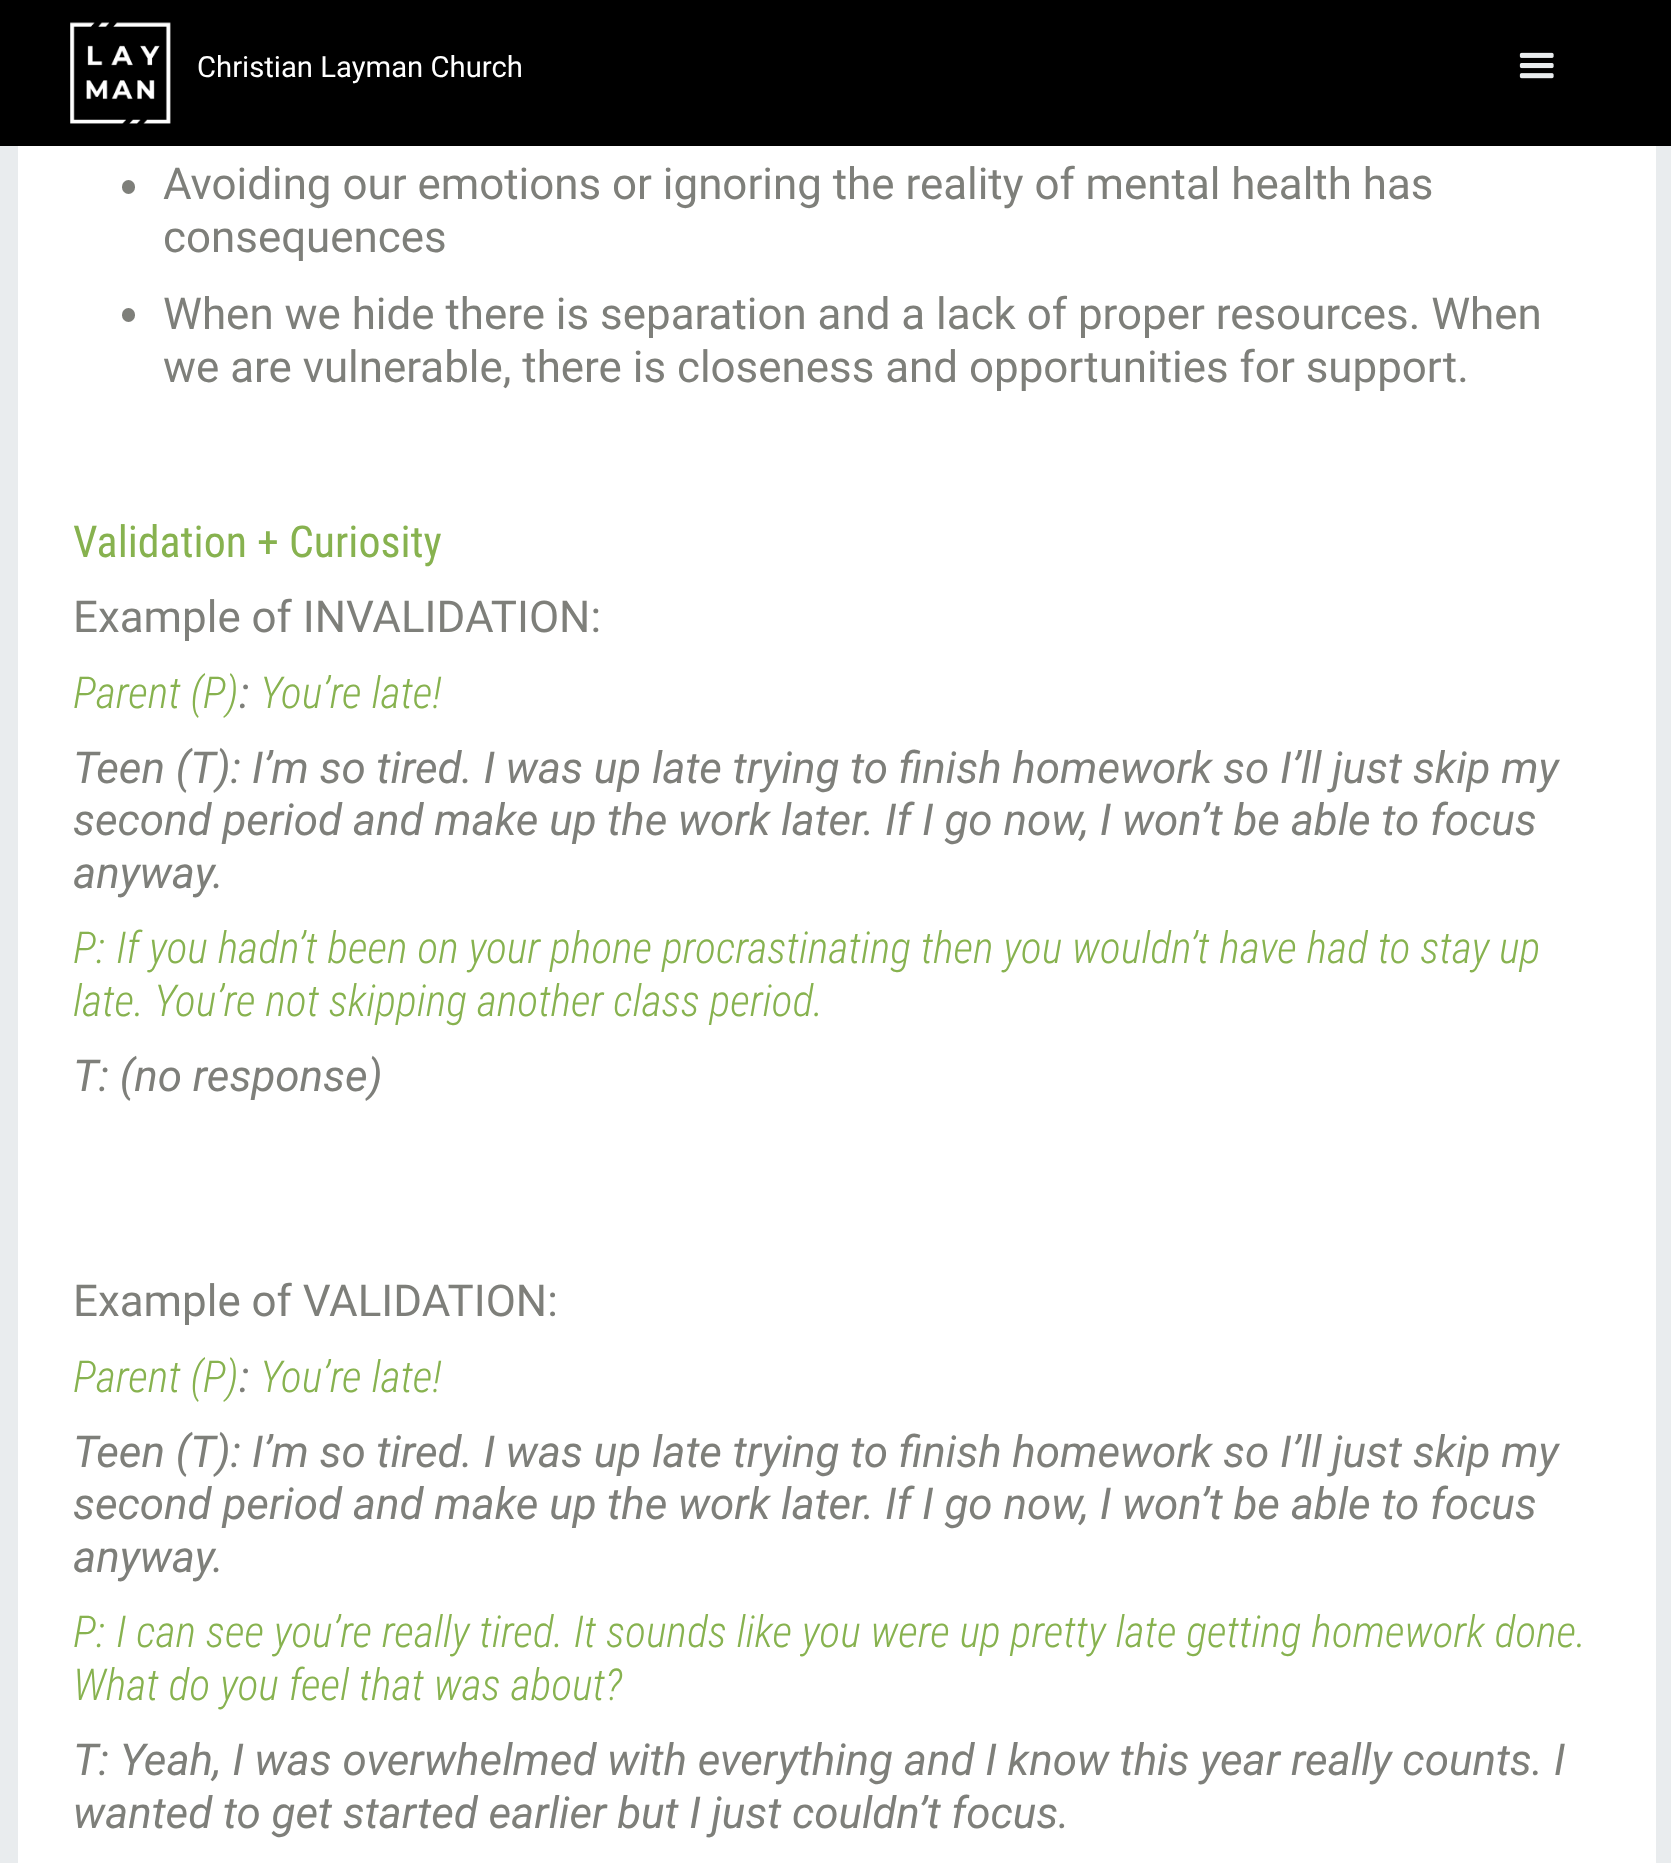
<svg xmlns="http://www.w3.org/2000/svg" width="1671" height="1863">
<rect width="100%" height="100%" fill="#e9ecee"/>
<rect width="1671" height="146" fill="#000"/>
<image x="70" y="22" width="101" height="102" href="media/1.png"/>
<text x="197" y="77" style="font-family:Roboto;font-size:29.25px;fill:#fff">Christian Layman Church</text>
<image x="1519" y="52" width="35" height="27" href="media/2.png"/>
<rect x="18" y="146" width="1638" height="1717" fill="#fff"/>
<rect x="122" y="180" width="13" height="14" rx="6.5" fill="#7e7f7a"/>
<text x="163" y="199" style="font-family:Roboto;font-size:43.9px;fill:#7e7f7a">Avoiding our emotions or ignoring the reality of mental health has</text>
<text x="163" y="252" style="font-family:Roboto;font-size:43.9px;fill:#7e7f7a">consequences</text>
<rect x="122" y="308" width="13" height="14" rx="6.5" fill="#7e7f7a"/>
<text x="163" y="329" style="font-family:Roboto;font-size:43.9px;fill:#7e7f7a">When we hide there is separation and a lack of proper resources. When</text>
<text x="163" y="382" style="font-family:Roboto;font-size:43.9px;fill:#7e7f7a">we are vulnerable, there is closeness and opportunities for support.</text>
<text x="73" y="557" style="font-family:Roboto Condensed;font-size:43.9px;fill:#87b24f">Validation + Curiosity</text>
<text x="73" y="632" style="font-family:Roboto;font-size:43.9px;fill:#7e7f7a">Example of INVALIDATION:</text>
<text x="73" y="708" style="font-family:Roboto Condensed;font-size:43.9px;font-weight:300;font-style:italic;fill:#87b24f">Parent (P)</text>
<text x="239" y="708" style="font-family:Roboto;font-size:43.9px;font-style:italic;fill:#7e7f7a">:</text>
<text x="260" y="708" style="font-family:Roboto Condensed;font-size:43.9px;font-weight:300;font-style:italic;fill:#87b24f">You’re late!</text>
<text x="73" y="783" style="font-family:Roboto;font-size:43.9px;font-style:italic;fill:#7e7f7a">Teen (T): I’m so tired. I was up late trying to finish homework so I’ll just skip my</text>
<text x="73" y="835" style="font-family:Roboto;font-size:43.9px;font-style:italic;fill:#7e7f7a">second period and make up the work later. If I go now, I won’t be able to focus</text>
<text x="73" y="888" style="font-family:Roboto;font-size:43.9px;font-style:italic;fill:#7e7f7a">anyway.</text>
<text x="73" y="963" style="font-family:Roboto Condensed;font-size:43.9px;font-weight:300;font-style:italic;fill:#87b24f">P:</text>
<text x="116" y="963" style="font-family:Roboto Condensed;font-size:43.9px;font-weight:300;font-style:italic;fill:#87b24f">If you hadn’t been on your phone procrastinating then you wouldn’t have had to stay up</text>
<text x="73" y="1016" style="font-family:Roboto Condensed;font-size:43.9px;font-weight:300;font-style:italic;fill:#87b24f">late. You’re not skipping another class period.</text>
<text x="73" y="1091" style="font-family:Roboto;font-size:43.9px;font-style:italic;fill:#7e7f7a">T: (no response)</text>
<text x="73" y="1316" style="font-family:Roboto;font-size:43.9px;fill:#7e7f7a">Example of VALIDATION:</text>
<text x="73" y="1392" style="font-family:Roboto Condensed;font-size:43.9px;font-weight:300;font-style:italic;fill:#87b24f">Parent (P)</text>
<text x="239" y="1392" style="font-family:Roboto;font-size:43.9px;font-style:italic;fill:#7e7f7a">:</text>
<text x="260" y="1392" style="font-family:Roboto Condensed;font-size:43.9px;font-weight:300;font-style:italic;fill:#87b24f">You’re late!</text>
<text x="73" y="1467" style="font-family:Roboto;font-size:43.9px;font-style:italic;fill:#7e7f7a">Teen (T): I’m so tired. I was up late trying to finish homework so I’ll just skip my</text>
<text x="73" y="1519" style="font-family:Roboto;font-size:43.9px;font-style:italic;fill:#7e7f7a">second period and make up the work later. If I go now, I won’t be able to focus</text>
<text x="73" y="1572" style="font-family:Roboto;font-size:43.9px;font-style:italic;fill:#7e7f7a">anyway.</text>
<text x="73" y="1647" style="font-family:Roboto Condensed;font-size:43.9px;font-weight:300;font-style:italic;fill:#87b24f">P:</text>
<text x="116" y="1647" style="font-family:Roboto Condensed;font-size:43.9px;font-weight:300;font-style:italic;fill:#87b24f">I can see you’re really tired. It sounds like you were up pretty late getting homework done.</text>
<text x="73" y="1700" style="font-family:Roboto Condensed;font-size:43.9px;font-weight:300;font-style:italic;fill:#87b24f">What do you feel that was about?</text>
<text x="73" y="1775" style="font-family:Roboto;font-size:43.9px;font-style:italic;fill:#7e7f7a">T: Yeah, I was overwhelmed with everything and I know this year really counts. I</text>
<text x="73" y="1828" style="font-family:Roboto;font-size:43.9px;font-style:italic;fill:#7e7f7a">wanted to get started earlier but I just couldn’t focus.</text>
</svg>
